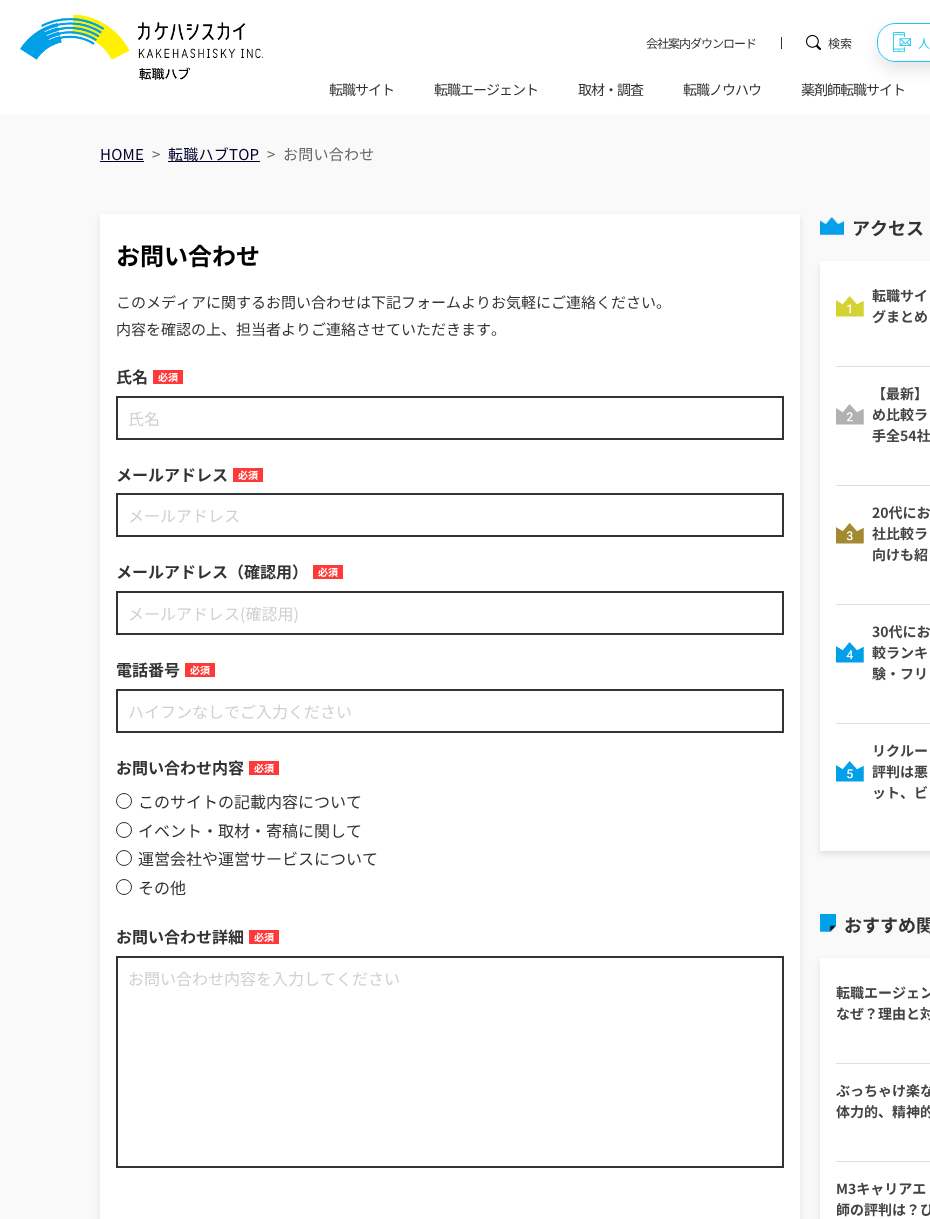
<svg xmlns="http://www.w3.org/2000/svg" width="930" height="1219">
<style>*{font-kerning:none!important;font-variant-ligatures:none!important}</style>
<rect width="100%" height="100%" fill="#f9f9f9"/>
<rect width="930" height="115" fill="#fff"/>
<image x="20" y="15" width="243" height="65" href="media/1.png"/>
<text x="646" y="48" style="font-family:Noto Sans JP;font-size:12px;letter-spacing:-1px;fill:#333">会社案内ダウンロード</text>
<rect x="781" y="37" width="1" height="12" fill="#333"/>
<image x="806" y="35" width="15" height="15" href="media/2.png"/>
<text x="828" y="48" style="font-family:Noto Sans JP;font-size:12px;fill:#333">検索</text>
<rect x="877" y="31" width="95" height="39" rx="18" fill="#0000001a" filter="blur(8px)"/>
<rect x="877" y="23" width="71" height="39" rx="18" fill="#fff"/>
<image x="893" y="32" width="18" height="20" href="media/3.png"/>
<rect x="877.5" y="23.5" width="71" height="38" rx="17.5" fill="none" stroke="#1cc9ee"/>
<text x="918" y="48" style="font-family:Noto Sans JP;font-size:12px;letter-spacing:-1px;fill:#1cc9ee">人</text>
<text x="329" y="95" style="font-family:Noto Sans JP;font-size:14px;letter-spacing:-1px;fill:#333">転職サイト</text>
<text x="434" y="95" style="font-family:Noto Sans JP;font-size:14px;letter-spacing:-1px;fill:#333">転職エージェント</text>
<text x="578" y="95" style="font-family:Noto Sans JP;font-size:14px;letter-spacing:-1px;fill:#333">取材・調査</text>
<text x="683" y="95" style="font-family:Noto Sans JP;font-size:14px;letter-spacing:-1px;fill:#333">転職ノウハウ</text>
<text x="801" y="95" style="font-family:Noto Sans JP;font-size:14px;letter-spacing:-1px;fill:#333">薬剤師転職サイト</text>
<text x="100" y="160" style="font-family:Noto Sans JP;font-size:15px;letter-spacing:0.25px;fill:#01012c">HOME</text>
<rect x="100" y="161" width="44" height="1" fill="#01012c"/>
<text x="152" y="160" style="font-family:Noto Sans JP;font-size:15px;letter-spacing:0.25px;fill:#666">&gt;</text>
<rect x="168" y="161" width="92" height="1" fill="#01012c"/>
<text x="168" y="160" style="font-family:Noto Sans JP;font-size:15px;letter-spacing:0.25px;fill:#01012c">転職ハブTOP</text>
<text x="267" y="160" style="font-family:Noto Sans JP;font-size:15px;letter-spacing:0.25px;fill:#666">&gt;</text>
<text x="283" y="160" style="font-family:Noto Sans JP;font-size:15px;letter-spacing:0.25px;fill:#666">お問い合わせ</text>
<rect x="100" y="217" width="700" height="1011" fill="#2412101a" filter="blur(3px)"/>
<rect x="100" y="214" width="700" height="1005" fill="#fff"/>
<text x="116" y="265" style="font-family:Noto Sans JP;font-size:24px;font-weight:bold;fill:#000">お問い合わせ</text>
<text x="116" y="308" style="font-family:Noto Sans JP;font-size:15px;fill:#333">このメディアに関するお問い合わせは下記フォームよりお気軽にご連絡ください。</text>
<text x="116" y="335" style="font-family:Noto Sans JP;font-size:15px;fill:#333">内容を確認の上、担当者よりご連絡させていただきます。</text>
<text x="116" y="383" style="font-family:Noto Sans JP;font-size:16px;font-weight:bold;fill:#333">氏名</text>
<rect x="153" y="370" width="30" height="14" fill="#ff3838"/>
<text x="158" y="381" style="font-family:Noto Sans JP;font-size:10px;font-weight:bold;fill:#fff">必須</text>
<rect x="117" y="397" width="666" height="42" fill="none" stroke="#333" stroke-width="2"/>
<text x="128" y="425" style="font-family:Noto Sans JP;font-size:16px;fill:#d0d0d0">氏名</text>
<text x="116" y="481" style="font-family:Noto Sans JP;font-size:16px;font-weight:bold;fill:#333">メールアドレス</text>
<rect x="233" y="468" width="30" height="14" fill="#ff3838"/>
<text x="238" y="479" style="font-family:Noto Sans JP;font-size:10px;font-weight:bold;fill:#fff">必須</text>
<rect x="117" y="494" width="666" height="42" fill="none" stroke="#333" stroke-width="2"/>
<text x="128" y="522" style="font-family:Noto Sans JP;font-size:16px;fill:#d0d0d0">メールアドレス</text>
<text x="116" y="578" style="font-family:Noto Sans JP;font-size:16px;font-weight:bold;fill:#333">メールアドレス（確認用）</text>
<rect x="313" y="565" width="30" height="14" fill="#ff3838"/>
<text x="318" y="576" style="font-family:Noto Sans JP;font-size:10px;font-weight:bold;fill:#fff">必須</text>
<rect x="117" y="592" width="666" height="42" fill="none" stroke="#333" stroke-width="2"/>
<text x="128" y="620" style="font-family:Noto Sans JP;font-size:16px;fill:#d0d0d0">メールアドレス(確認用)</text>
<text x="116" y="676" style="font-family:Noto Sans JP;font-size:16px;font-weight:bold;fill:#333">電話番号</text>
<rect x="185" y="663" width="30" height="14" fill="#ff3838"/>
<text x="190" y="674" style="font-family:Noto Sans JP;font-size:10px;font-weight:bold;fill:#fff">必須</text>
<rect x="117" y="690" width="666" height="42" fill="none" stroke="#333" stroke-width="2"/>
<text x="128" y="718" style="font-family:Noto Sans JP;font-size:16px;fill:#d0d0d0">ハイフンなしでご入力ください</text>
<text x="116" y="774" style="font-family:Noto Sans JP;font-size:16px;font-weight:bold;fill:#333">お問い合わせ内容</text>
<rect x="249" y="761" width="30" height="14" fill="#ff3838"/>
<text x="254" y="772" style="font-family:Noto Sans JP;font-size:10px;font-weight:bold;fill:#fff">必須</text>
<circle cx="124" cy="801" r="7.5" fill="none" stroke="#333"/>
<text x="138" y="808" style="font-family:Noto Sans JP;font-size:16px;fill:#333">このサイトの記載内容について</text>
<circle cx="124" cy="830" r="7.5" fill="none" stroke="#333"/>
<text x="138" y="837" style="font-family:Noto Sans JP;font-size:16px;fill:#333">イベント・取材・寄稿に関して</text>
<circle cx="124" cy="858" r="7.5" fill="none" stroke="#333"/>
<text x="138" y="865" style="font-family:Noto Sans JP;font-size:16px;fill:#333">運営会社や運営サービスについて</text>
<circle cx="124" cy="887" r="7.5" fill="none" stroke="#333"/>
<text x="138" y="894" style="font-family:Noto Sans JP;font-size:16px;fill:#333">その他</text>
<text x="116" y="943" style="font-family:Noto Sans JP;font-size:16px;font-weight:bold;fill:#333">お問い合わせ詳細</text>
<rect x="249" y="930" width="30" height="14" fill="#ff3838"/>
<text x="254" y="941" style="font-family:Noto Sans JP;font-size:10px;font-weight:bold;fill:#fff">必須</text>
<rect x="117" y="957" width="666" height="210" fill="none" stroke="#333" stroke-width="2"/>
<text x="128" y="985" style="font-family:Noto Sans JP;font-size:16px;fill:#d0d0d0">お問い合わせ内容を入力してください</text>
<image x="820" y="217" width="24" height="18" href="media/4.png"/>
<text x="852" y="235" style="font-family:Noto Sans JP;font-size:18px;font-weight:bold;fill:#333">アクセス</text>
<rect x="820" y="264" width="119" height="590" fill="#1024231f" filter="blur(3px)"/>
<rect x="820" y="261" width="110" height="590" fill="#fff"/>
<image x="836" y="296" width="28" height="21" href="media/5.png"/>
<text x="872" y="301" style="font-family:Noto Sans JP;font-size:14px;font-weight:bold;fill:#444">転職サイ</text>
<text x="872" y="322" style="font-family:Noto Sans JP;font-size:14px;font-weight:bold;fill:#444">グまとめ</text>
<rect x="836" y="366" width="94" height="1" fill="#dedede"/>
<image x="836" y="404" width="28" height="21" href="media/6.png"/>
<text x="872" y="399" style="font-family:Noto Sans JP;font-size:14px;font-weight:bold;fill:#444">【最新】</text>
<text x="872" y="420" style="font-family:Noto Sans JP;font-size:14px;font-weight:bold;fill:#444">め比較ラ</text>
<text x="872" y="441" style="font-family:Noto Sans JP;font-size:14px;font-weight:bold;fill:#444">手全54社</text>
<rect x="836" y="485" width="94" height="1" fill="#dedede"/>
<image x="836" y="523" width="28" height="21" href="media/7.png"/>
<text x="872" y="518" style="font-family:Noto Sans JP;font-size:14px;font-weight:bold;fill:#444">20代にお</text>
<text x="872" y="539" style="font-family:Noto Sans JP;font-size:14px;font-weight:bold;fill:#444">社比較ラ</text>
<text x="872" y="560" style="font-family:Noto Sans JP;font-size:14px;font-weight:bold;fill:#444">向けも紹</text>
<rect x="836" y="604" width="94" height="1" fill="#dedede"/>
<image x="836" y="642" width="28" height="21" href="media/8.png"/>
<text x="872" y="637" style="font-family:Noto Sans JP;font-size:14px;font-weight:bold;fill:#444">30代にお</text>
<text x="872" y="658" style="font-family:Noto Sans JP;font-size:14px;font-weight:bold;fill:#444">較ランキ</text>
<text x="872" y="679" style="font-family:Noto Sans JP;font-size:14px;font-weight:bold;fill:#444">験・フリ</text>
<rect x="836" y="723" width="94" height="1" fill="#dedede"/>
<image x="836" y="761" width="28" height="21" href="media/9.png"/>
<text x="872" y="756" style="font-family:Noto Sans JP;font-size:14px;font-weight:bold;fill:#444">リクルー</text>
<text x="872" y="777" style="font-family:Noto Sans JP;font-size:14px;font-weight:bold;fill:#444">評判は悪</text>
<text x="872" y="798" style="font-family:Noto Sans JP;font-size:14px;font-weight:bold;fill:#444">ット、ビ</text>
<image x="820" y="914" width="16" height="18" href="media/10.png"/>
<text x="844" y="932" style="font-family:Noto Sans JP;font-size:18px;font-weight:bold;fill:#333">おすすめ関</text>
<rect x="820" y="961" width="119" height="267" fill="#1024231f" filter="blur(3px)"/>
<rect x="820" y="958" width="110" height="261" fill="#fff"/>
<text x="836" y="998" style="font-family:Noto Sans JP;font-size:14px;font-weight:bold;fill:#444">転職エージェン</text>
<text x="836" y="1019" style="font-family:Noto Sans JP;font-size:14px;font-weight:bold;fill:#444">なぜ？理由と対</text>
<rect x="836" y="1063" width="94" height="1" fill="#dedede"/>
<text x="836" y="1096" style="font-family:Noto Sans JP;font-size:14px;font-weight:bold;fill:#444">ぶっちゃけ楽な</text>
<text x="836" y="1117" style="font-family:Noto Sans JP;font-size:14px;font-weight:bold;fill:#444">体力的、精神的</text>
<rect x="836" y="1161" width="94" height="1" fill="#dedede"/>
<text x="836" y="1194" style="font-family:Noto Sans JP;font-size:14px;font-weight:bold;fill:#444">M3キャリアエ</text>
<text x="836" y="1215" style="font-family:Noto Sans JP;font-size:14px;font-weight:bold;fill:#444">師の評判は？ひ</text>
</svg>
